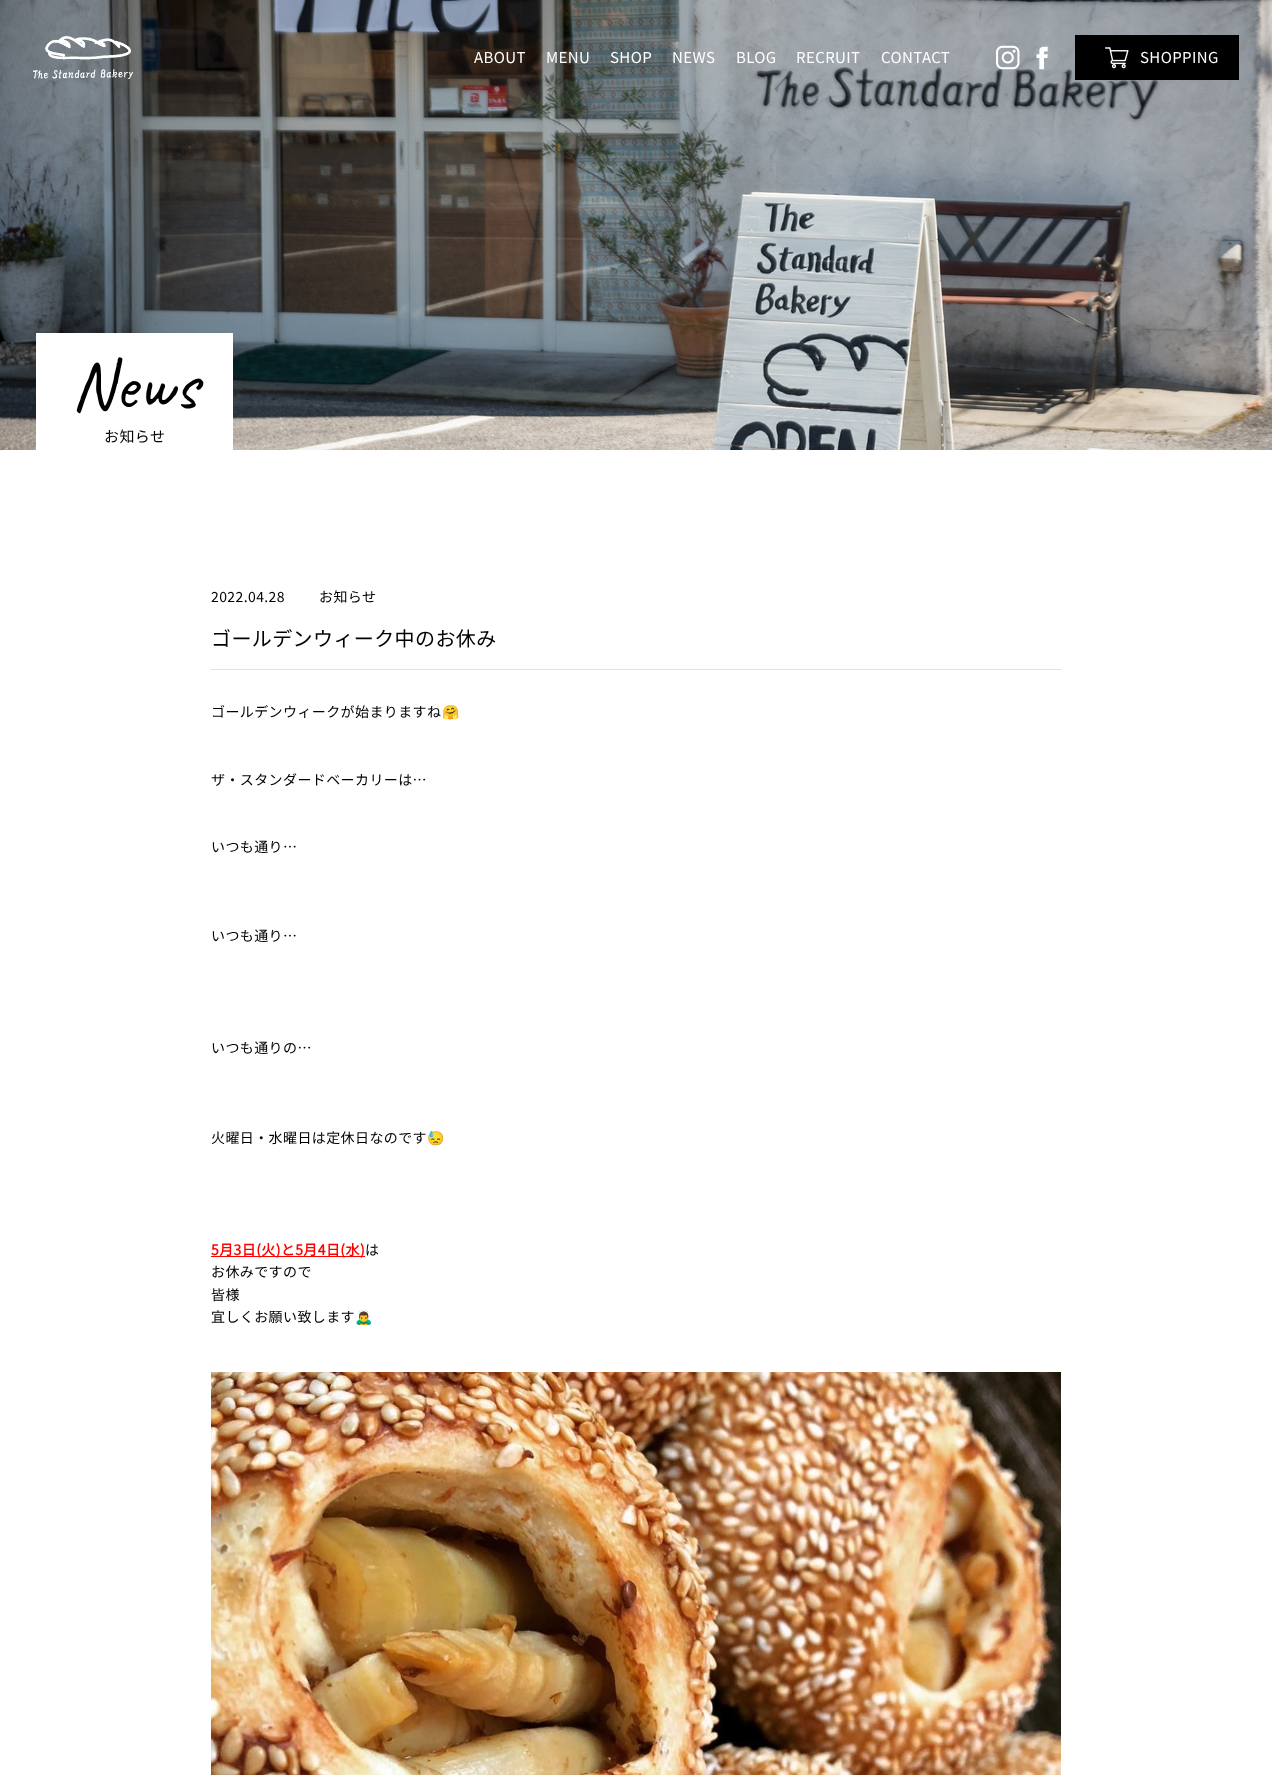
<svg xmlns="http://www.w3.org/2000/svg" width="1272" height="1775">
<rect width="100%" height="100%" fill="#fff"/>
<image x="0" y="0" width="1272" height="450" href="media/5.png"/>
<image x="33" y="36" width="100" height="43" href="media/1.png"/>
<text x="474" y="63" style="font-family:Noto Sans JP;font-size:15px;font-weight:100;letter-spacing:0.4px;fill:#fff">ABOUT</text>
<text x="546" y="63" style="font-family:Noto Sans JP;font-size:15px;font-weight:100;letter-spacing:0.4px;fill:#fff">MENU</text>
<text x="610" y="63" style="font-family:Noto Sans JP;font-size:15px;font-weight:100;letter-spacing:0.4px;fill:#fff">SHOP</text>
<text x="672" y="63" style="font-family:Noto Sans JP;font-size:15px;font-weight:100;letter-spacing:0.4px;fill:#fff">NEWS</text>
<text x="736" y="63" style="font-family:Noto Sans JP;font-size:15px;font-weight:100;letter-spacing:0.4px;fill:#fff">BLOG</text>
<text x="796" y="63" style="font-family:Noto Sans JP;font-size:15px;font-weight:100;letter-spacing:0.4px;fill:#fff">RECRUIT</text>
<text x="881" y="63" style="font-family:Noto Sans JP;font-size:15px;font-weight:100;letter-spacing:0.4px;fill:#fff">CONTACT</text>
<image x="996" y="45" width="24" height="25" href="media/2.png"/>
<image x="1036" y="46" width="12" height="24" href="media/3.png"/>
<rect x="1075" y="35" width="164" height="45" fill="#000"/>
<image x="1105" y="47" width="24" height="22" href="media/4.png"/>
<text x="1140" y="63" style="font-family:Noto Sans JP;font-size:15px;font-weight:100;letter-spacing:0.4px;fill:#fff">SHOPPING</text>
<rect x="36" y="333" width="197" height="117" fill="#fff"/>
<text x="71" y="408" style="font-family:Caveat;font-size:70px;letter-spacing:0.4px;fill:#000">News</text>
<text x="104" y="442" style="font-family:Noto Sans JP;font-size:15px;font-weight:100;letter-spacing:0.4px;fill:#000">お知らせ</text>
<text x="211" y="602" style="font-family:Noto Sans JP;font-size:14px;font-weight:100;letter-spacing:0.4px;fill:#000">2022.04.28</text>
<text x="319" y="602" style="font-family:Noto Sans JP;font-size:14px;font-weight:100;letter-spacing:0.4px;fill:#000">お知らせ</text>
<rect x="211" y="669" width="850" height="1" fill="#e0e0e0"/>
<text x="211" y="646" style="font-family:Noto Sans JP;font-size:20px;font-weight:100;letter-spacing:0.4px;fill:#000">ゴールデンウィーク中のお休み</text>
<text x="211" y="717" style="font-family:Noto Sans JP;font-size:14px;font-weight:100;letter-spacing:0.4px;fill:#000">ゴールデンウィークが始まりますね</text>
<text x="442" y="717" style="font-family:Noto Color Emoji;font-size:14px;letter-spacing:0.4px;fill:#000">🤗</text>
<text x="211" y="785" style="font-family:Noto Sans JP;font-size:14px;font-weight:100;letter-spacing:0.4px;fill:#000">ザ・スタンダードベーカリーは…</text>
<text x="211" y="852" style="font-family:Noto Sans JP;font-size:14px;font-weight:100;letter-spacing:0.4px;fill:#000">いつも通り…</text>
<text x="211" y="941" style="font-family:Noto Sans JP;font-size:14px;font-weight:100;letter-spacing:0.4px;fill:#000">いつも通り…</text>
<text x="211" y="1053" style="font-family:Noto Sans JP;font-size:14px;font-weight:100;letter-spacing:0.4px;fill:#000">いつも通りの…</text>
<text x="211" y="1143" style="font-family:Noto Sans JP;font-size:14px;font-weight:100;letter-spacing:0.4px;fill:#000">火曜日・水曜日は定休日なのです</text>
<text x="427" y="1143" style="font-family:Noto Color Emoji;font-size:14px;letter-spacing:0.4px;fill:#000">😓</text>
<rect x="211" y="1256" width="154" height="1" fill="#f00"/>
<text x="211" y="1255" style="font-family:Noto Sans JP;font-size:14px;font-weight:bold;letter-spacing:0.4px;fill:#f00">5月3日(火)と5月4日(水)</text>
<text x="365" y="1255" style="font-family:Noto Sans JP;font-size:14px;font-weight:100;letter-spacing:0.4px;fill:#000">は</text>
<text x="211" y="1277" style="font-family:Noto Sans JP;font-size:14px;font-weight:100;letter-spacing:0.4px;fill:#000">お休みですので</text>
<text x="211" y="1300" style="font-family:Noto Sans JP;font-size:14px;font-weight:100;letter-spacing:0.4px;fill:#000">皆様</text>
<text x="211" y="1322" style="font-family:Noto Sans JP;font-size:14px;font-weight:100;letter-spacing:0.4px;fill:#000">宜しくお願い致します</text>
<text x="355" y="1322" style="font-family:Noto Color Emoji;font-size:14px;letter-spacing:0.4px;fill:#000">🙇‍♂️</text>
<image x="211" y="1372" width="850" height="403" href="media/6.png"/>
</svg>
